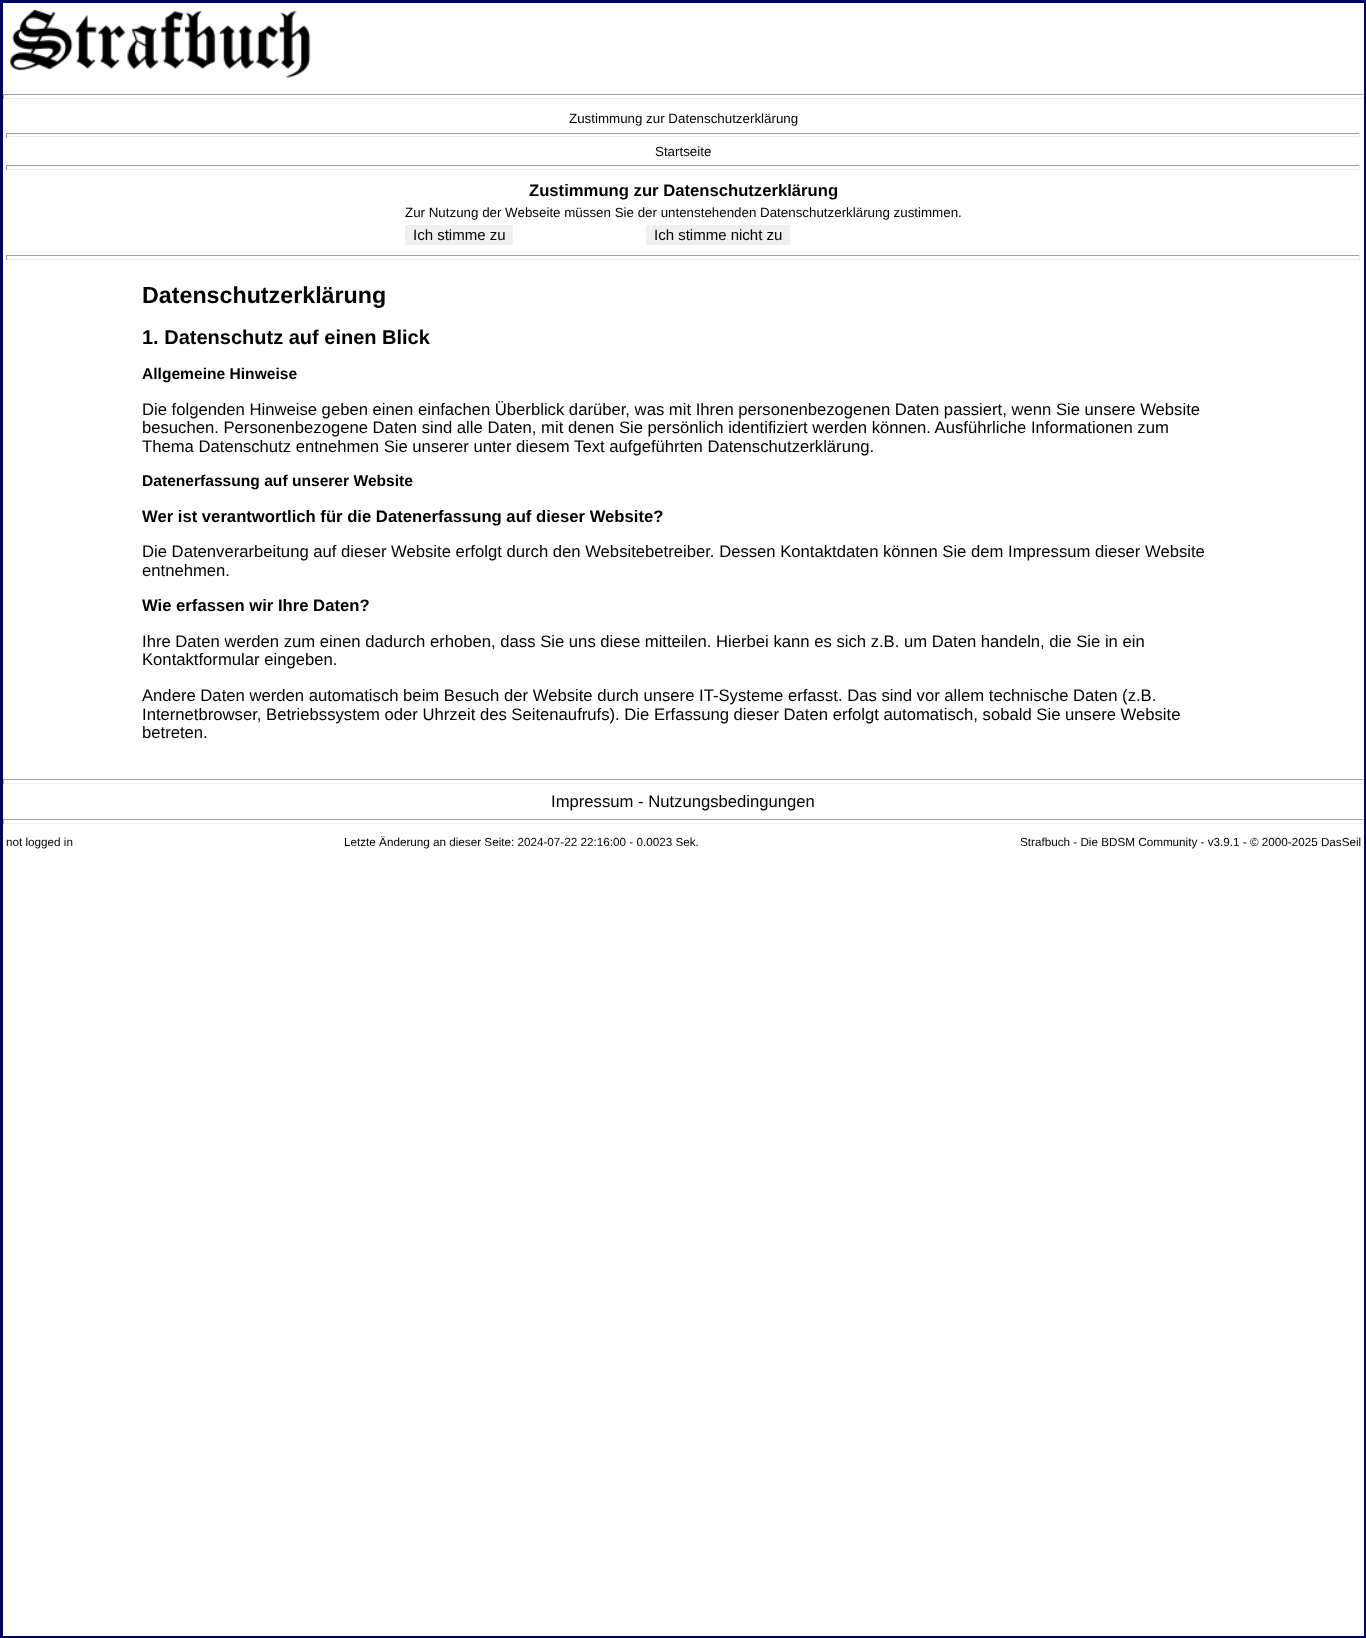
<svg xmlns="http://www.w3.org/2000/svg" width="1366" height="1638">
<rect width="100%" height="100%" fill="#006"/>
<rect x="3" y="3" width="1361" height="1633" fill="#fff"/>
<image x="9" y="9" width="302" height="69" href="media/1.png"/>
<rect x="3" y="94" width="1361" height="1" fill="#9f9f9f"/>
<rect x="1363" y="94" width="1" height="5" fill="#eee"/>
<rect x="3" y="98" width="1361" height="1" fill="#eee"/>
<rect x="3" y="94" width="1" height="5" fill="#9f9f9f"/>
<text x="569" y="123" style="font-family:Liberation Sans;font-size:13.35px;fill:#000">Zustimmung zur Datenschutzerklärung</text>
<rect x="6" y="133" width="1354" height="1" fill="#9f9f9f"/>
<rect x="1359" y="133" width="1" height="5" fill="#eee"/>
<rect x="6" y="136" width="1354" height="1" fill="#eee"/>
<rect x="6" y="133" width="1" height="5" fill="#9f9f9f"/>
<text x="655" y="156" style="font-family:Liberation Sans;font-size:13.35px;fill:#000">Startseite</text>
<rect x="6" y="165" width="1354" height="1" fill="#9f9f9f"/>
<rect x="1359" y="165" width="1" height="5" fill="#eee"/>
<rect x="6" y="169" width="1354" height="1" fill="#eee"/>
<rect x="6" y="165" width="1" height="5" fill="#9f9f9f"/>
<text x="529" y="196" style="font-family:Liberation Sans;font-size:16.67px;font-weight:bold;fill:#000">Zustimmung zur Datenschutzerklärung</text>
<text x="405" y="217" style="font-family:Liberation Sans;font-size:13.35px;fill:#000">Zur Nutzung der Webseite müssen Sie der untenstehenden Datenschutzerklärung zustimmen.</text>
<rect x="405" y="225" width="108" height="20" fill="#efefef"/>
<text x="413" y="240" style="font-family:Liberation Sans;font-size:15px;fill:#000">Ich stimme zu</text>
<rect x="646" y="225" width="144" height="20" fill="#efefef"/>
<text x="654" y="240" style="font-family:Liberation Sans;font-size:15px;fill:#000">Ich stimme nicht zu</text>
<rect x="6" y="255" width="1354" height="1" fill="#9f9f9f"/>
<rect x="1359" y="255" width="1" height="5" fill="#eee"/>
<rect x="6" y="259" width="1354" height="1" fill="#eee"/>
<rect x="6" y="255" width="1" height="5" fill="#9f9f9f"/>
<text x="142" y="303" style="font-family:Liberation Sans;font-size:23.25px;font-weight:bold;fill:#000">Datenschutzerklärung</text>
<text x="142" y="344" style="font-family:Liberation Sans;font-size:20px;font-weight:bold;fill:#000">1. Datenschutz auf einen Blick</text>
<text x="142" y="379" style="font-family:Liberation Sans;font-size:15.6px;font-weight:bold;fill:#000">Allgemeine Hinweise</text>
<text x="142" y="415" style="font-family:Liberation Sans;font-size:16.67px;fill:#000">Die folgenden Hinweise geben einen einfachen Überblick darüber, was mit Ihren personenbezogenen Daten passiert, wenn Sie unsere Website</text>
<text x="142" y="433" style="font-family:Liberation Sans;font-size:16.67px;fill:#000">besuchen. Personenbezogene Daten sind alle Daten, mit denen Sie persönlich identifiziert werden können. Ausführliche Informationen zum</text>
<text x="142" y="452" style="font-family:Liberation Sans;font-size:16.67px;fill:#000">Thema Datenschutz entnehmen Sie unserer unter diesem Text aufgeführten Datenschutzerklärung.</text>
<text x="142" y="486" style="font-family:Liberation Sans;font-size:15.6px;font-weight:bold;fill:#000">Datenerfassung auf unserer Website</text>
<text x="142" y="522" style="font-family:Liberation Sans;font-size:16.67px;font-weight:bold;fill:#000">Wer ist verantwortlich für die Datenerfassung auf dieser Website?</text>
<text x="142" y="557" style="font-family:Liberation Sans;font-size:16.67px;fill:#000">Die Datenverarbeitung auf dieser Website erfolgt durch den Websitebetreiber. Dessen Kontaktdaten können Sie dem Impressum dieser Website</text>
<text x="142" y="576" style="font-family:Liberation Sans;font-size:16.67px;fill:#000">entnehmen.</text>
<text x="142" y="611" style="font-family:Liberation Sans;font-size:16.67px;font-weight:bold;fill:#000">Wie erfassen wir Ihre Daten?</text>
<text x="142" y="647" style="font-family:Liberation Sans;font-size:16.67px;fill:#000">Ihre Daten werden zum einen dadurch erhoben, dass Sie uns diese mitteilen. Hierbei kann es sich z.B. um Daten handeln, die Sie in ein</text>
<text x="142" y="665" style="font-family:Liberation Sans;font-size:16.67px;fill:#000">Kontaktformular eingeben.</text>
<text x="142" y="701" style="font-family:Liberation Sans;font-size:16.67px;fill:#000">Andere Daten werden automatisch beim Besuch der Website durch unsere IT-Systeme erfasst. Das sind vor allem technische Daten (z.B.</text>
<text x="142" y="720" style="font-family:Liberation Sans;font-size:16.67px;fill:#000">Internetbrowser, Betriebssystem oder Uhrzeit des Seitenaufrufs). Die Erfassung dieser Daten erfolgt automatisch, sobald Sie unsere Website</text>
<text x="142" y="738" style="font-family:Liberation Sans;font-size:16.67px;fill:#000">betreten.</text>
<rect x="3" y="779" width="1361" height="1" fill="#9f9f9f"/>
<rect x="1363" y="779" width="1" height="5" fill="#eee"/>
<rect x="3" y="783" width="1361" height="1" fill="#eee"/>
<rect x="3" y="779" width="1" height="5" fill="#9f9f9f"/>
<text x="551" y="807" style="font-family:Liberation Sans;font-size:16.67px;fill:#000">Impressum - Nutzungsbedingungen</text>
<rect x="3" y="819" width="1361" height="1" fill="#9f9f9f"/>
<rect x="1363" y="819" width="1" height="5" fill="#eee"/>
<rect x="3" y="823" width="1361" height="1" fill="#eee"/>
<rect x="3" y="819" width="1" height="5" fill="#9f9f9f"/>
<text x="6" y="846" style="font-family:Liberation Sans;font-size:11.7px;fill:#000">not logged in</text>
<text x="344" y="846" style="font-family:Liberation Sans;font-size:11.7px;fill:#000">Letzte Änderung an dieser Seite: 2024-07-22 22:16:00 - 0.0023 Sek.</text>
<text x="1020" y="846" style="font-family:Liberation Sans;font-size:11.7px;fill:#000">Strafbuch - Die BDSM Community - v3.9.1 - © 2000-2025 DasSeil</text>
</svg>
